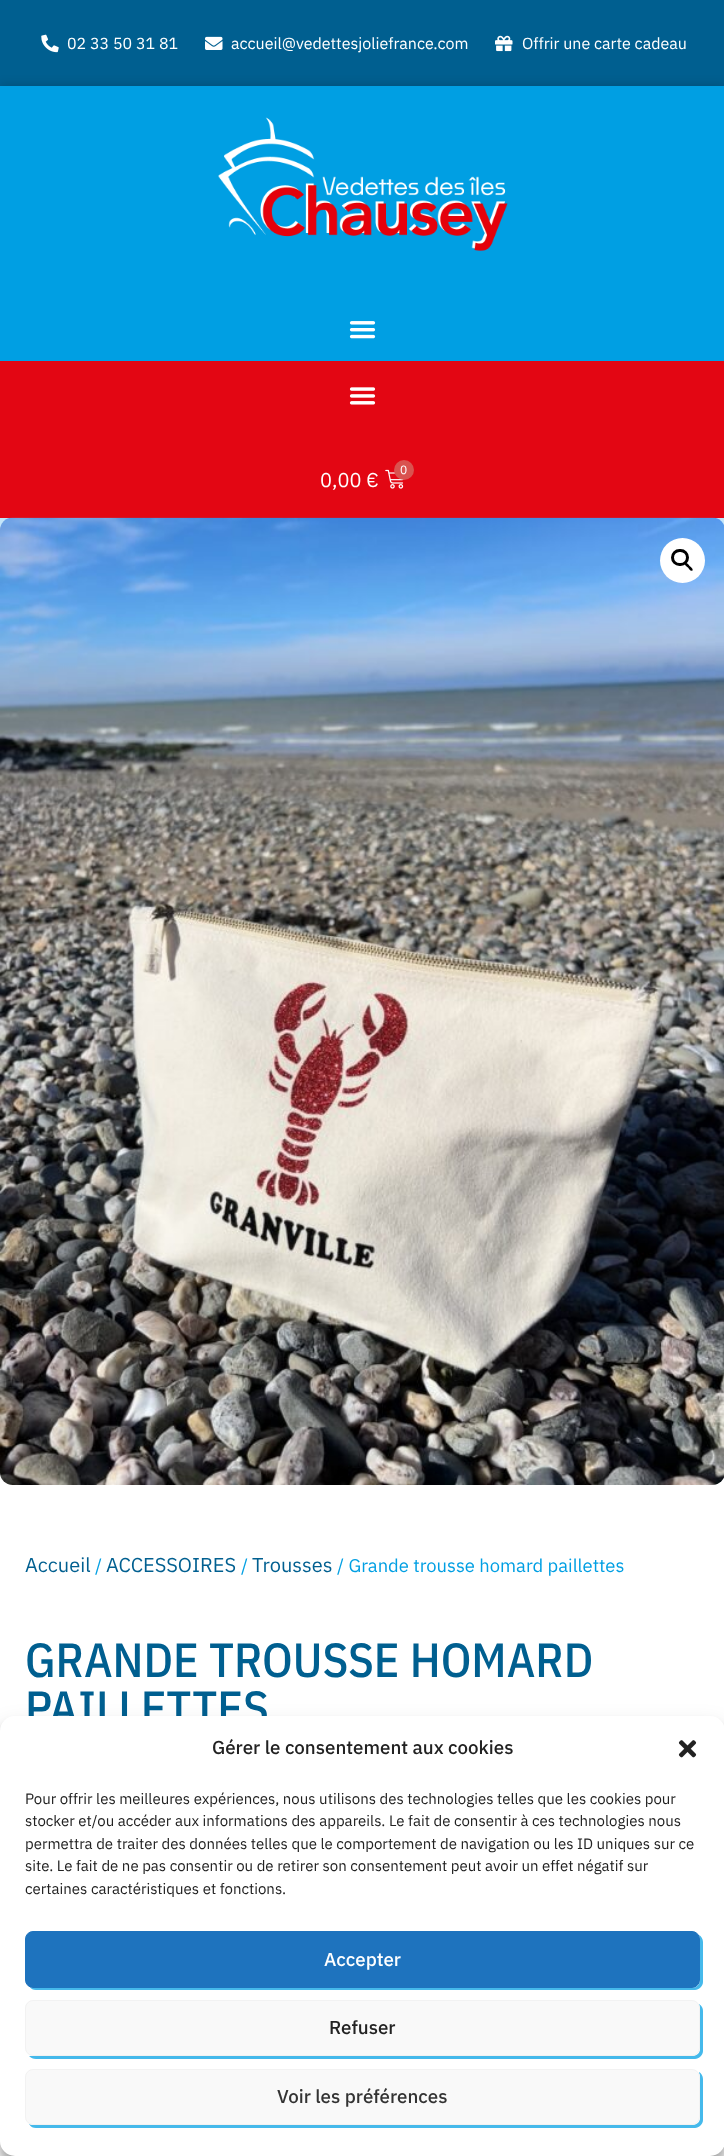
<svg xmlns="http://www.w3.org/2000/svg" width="724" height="2156">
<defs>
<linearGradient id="g1" gradientUnits="userSpaceOnUse" x1="362" y1="518" x2="363" y2="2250"><stop offset="0" stop-color="#c4e5f9"/><stop offset="0.25" stop-color="#fff"/></linearGradient>
</defs>
<rect width="100%" height="100%" fill="#005f90"/>
<image x="41" y="34" width="18" height="19" href="media/1.png"/>
<text x="67" y="49" style="font-family:IBM Plex Sans;font-size:16px;fill:#fff">02 33 50 31 81</text>
<image x="205" y="36" width="18" height="14" href="media/2.png"/>
<text x="231" y="49" style="font-family:IBM Plex Sans;font-size:16px;fill:#fff">accueil@vedettesjoliefrance.com</text>
<image x="495" y="35" width="18" height="17" href="media/3.png"/>
<text x="522" y="49" style="font-family:IBM Plex Sans;font-size:16px;fill:#fff">Offrir une carte cadeau</text>
<rect y="86" width="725" height="275" fill="#00000030" filter="blur(5.5px)"/>
<rect y="86" width="724" height="275" fill="#009fe3"/>
<image x="218" y="117" width="290" height="134" href="media/4.png"/>
<image x="349" y="321" width="27" height="18" href="media/5.png"/>
<rect y="361" width="724" height="157" fill="#e30613"/>
<image x="349" y="387" width="27" height="18" href="media/6.png"/>
<image x="385" y="469" width="19" height="20" href="media/7.png"/>
<circle cx="404" cy="470" r="10" fill="#d9534f"/>
<text x="400" y="474" style="font-family:IBM Plex Sans;font-size:12px;fill:#fff">0</text>
<text x="320" y="487" style="font-family:IBM Plex Sans;font-size:20px;fill:#fff">0,00 €</text>
<rect y="518" width="724" height="1638" fill="url(#g1)"/>
<image x="0" y="517" width="724" height="968" href="media/8.png"/>
<circle cx="682.5" cy="560.5" r="22.5" fill="#fff"/>
<rect x="672.5" y="550.5" width="15" height="14" rx="7" fill="none" stroke="#000" stroke-width="3"/>
<path d="M685 563.5c1.5-1.5 4 1.5 4.5 2.5c1 .5 4 3 3 4.5c-1.5 1.5-4-2-4.5-3c-1-.5-4-3-3-4z" fill="#000"/>
<text x="25" y="1572" style="font-family:IBM Plex Sans;font-size:20px;fill:#005f90">Accueil</text>
<text x="95" y="1572" style="font-family:IBM Plex Sans;font-size:18.4px;fill:#009fe3">/</text>
<text x="106" y="1572" style="font-family:IBM Plex Sans;font-size:20px;fill:#005f90">ACCESSOIRES</text>
<text x="241" y="1572" style="font-family:IBM Plex Sans;font-size:18.4px;fill:#009fe3">/</text>
<text x="252" y="1572" style="font-family:IBM Plex Sans;font-size:20px;fill:#005f90">Trousses</text>
<text x="337" y="1572" style="font-family:IBM Plex Sans;font-size:18.4px;fill:#009fe3">/ Grande trousse homard paillettes</text>
<text x="25" y="1677" style="font-family:IBM Plex Sans Condensed;font-size:48px;font-weight:500;fill:#005f90">GRANDE TROUSSE HOMARD</text>
<text x="25" y="1725" style="font-family:IBM Plex Sans Condensed;font-size:48px;font-weight:500;fill:#005f90">PAILLETTES</text>
<rect y="1724" width="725" height="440" rx="15" fill="#0000003b" filter="blur(4px)"/>
<rect y="1729" width="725" height="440" rx="15" fill="#00000030" filter="blur(12.5px)"/>
<rect y="1716" width="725" height="440" rx="15" fill="#fff"/>
<text x="212" y="1754" style="font-family:IBM Plex Sans;font-size:18.75px;font-weight:500;fill:#222">Gérer le consentement aux cookies</text>
<image x="678" y="1740" width="19" height="18" href="media/9.png"/>
<text x="25" y="1804" style="font-family:IBM Plex Sans;font-size:15px;fill:#222">Pour offrir les meilleures expériences, nous utilisons des technologies telles que les cookies pour</text>
<text x="25" y="1826" style="font-family:IBM Plex Sans;font-size:15px;fill:#222">stocker et/ou accéder aux informations des appareils. Le fait de consentir à ces technologies nous</text>
<text x="25" y="1849" style="font-family:IBM Plex Sans;font-size:15px;fill:#222">permettra de traiter des données telles que le comportement de navigation ou les ID uniques sur ce</text>
<text x="25" y="1871" style="font-family:IBM Plex Sans;font-size:15px;fill:#222">site. Le fait de ne pas consentir ou de retirer son consentement peut avoir un effet négatif sur</text>
<text x="25" y="1894" style="font-family:IBM Plex Sans;font-size:15px;fill:#222">certaines caractéristiques et fonctions.</text>
<path d="M30 1987c1 2 3 3 6 3h659c4 0 8-4 8-8v-40c0-3-2-6-4-7l1 4v41c0 4-3 8-8 8h-660z" fill="#45b9eb"/>
<rect x="25.5" y="1931.5" width="674" height="56" rx="7.5" fill="#1e73be" stroke="#1e73be"/>
<text x="324" y="1966" style="font-family:IBM Plex Sans;font-size:18.75px;font-weight:500;fill:#fff">Accepter</text>
<path d="M29 2056c2 2 4 3 7 3h659c4 0 8-4 8-8v-40c0-3-1-5-4-7l1 4v41c0 4-3 7-8 7h-660z" fill="#45b9eb"/>
<rect x="25.5" y="2000.5" width="674" height="55" rx="7.5" fill="#f9f9f9" stroke="#f2f2f2"/>
<text x="329" y="2034" style="font-family:IBM Plex Sans;font-size:18.75px;font-weight:500;fill:#222">Refuser</text>
<path d="M29 2124c2 3 4 4 7 4h659c4 0 8-4 8-8v-41c0-3-2-6-4-7c0 1 1 3 1 4v42c0 4-3 7-8 7h-660z" fill="#45b9eb"/>
<rect x="25.5" y="2069.5" width="674" height="55" rx="7.5" fill="#f9f9f9" stroke="#f2f2f2"/>
<text x="277" y="2103" style="font-family:IBM Plex Sans;font-size:18.75px;font-weight:500;fill:#333">Voir les préférences</text>
</svg>
